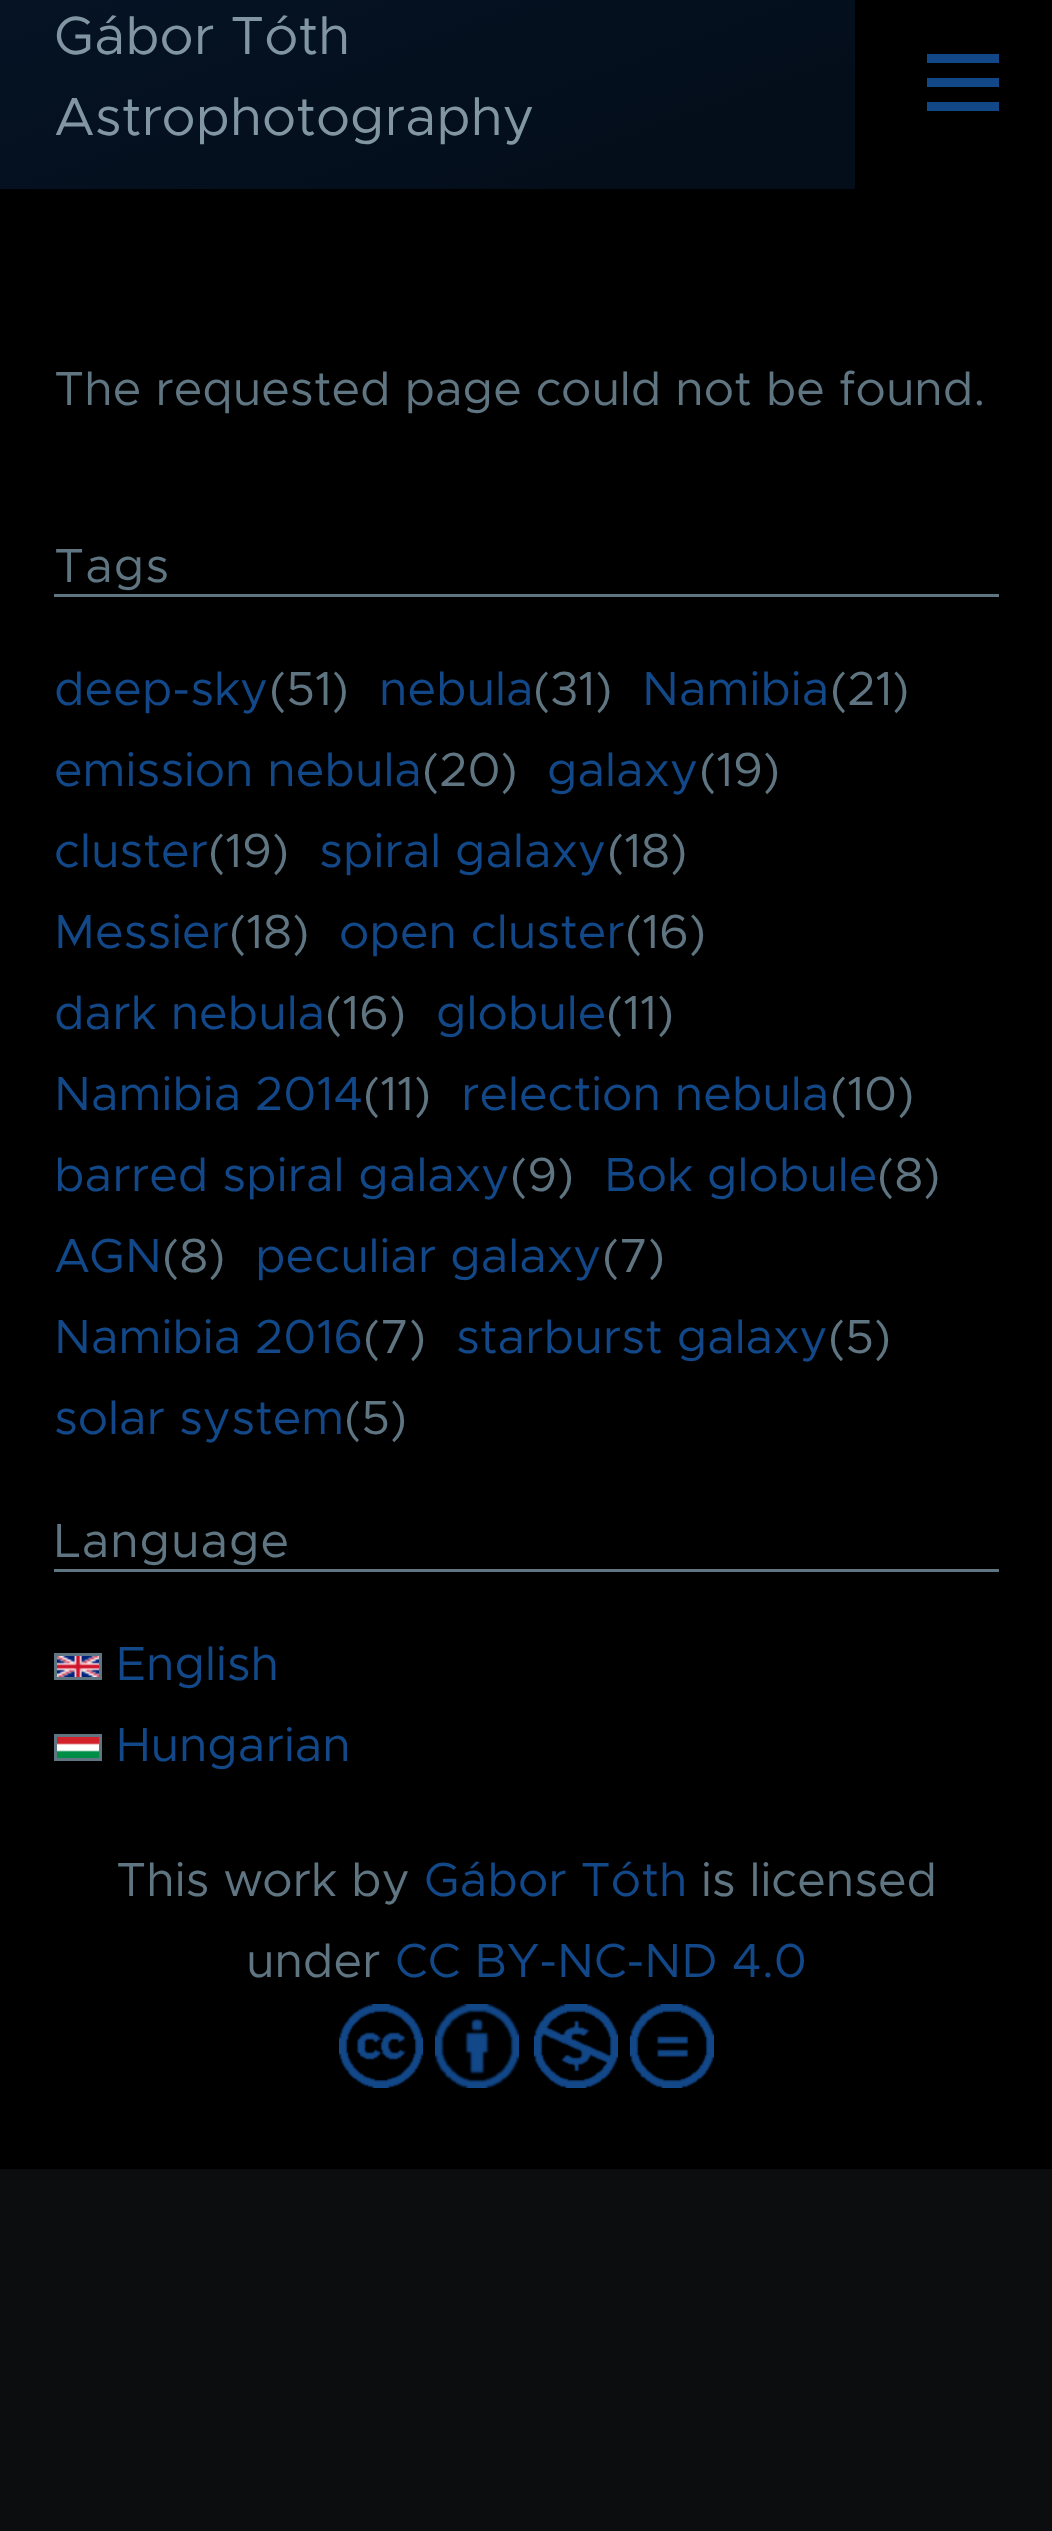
<svg xmlns="http://www.w3.org/2000/svg" width="1052" height="2531">
<defs>
<linearGradient id="g1" gradientUnits="userSpaceOnUse" x1="347" y1="-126" x2="508" y2="315"><stop offset="0" stop-color="#051324"/><stop offset="0.79" stop-color="#040e1b"/></linearGradient>
</defs>
<rect width="100%" height="100%" fill="#0b0d0f"/>
<rect width="1052" height="2169" fill="#000"/>
<rect width="855" height="189" fill="url(#g1)"/>
<text x="54" y="54" style="font-family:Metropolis;font-size:54px;fill:#8196a2">Gábor Tóth</text>
<text x="54" y="135" style="font-family:Metropolis;font-size:54px;fill:#8196a2">Astrophotography</text>
<rect x="927" y="78" width="72" height="9" fill="#124788"/>
<rect x="927" y="54" width="72" height="9" fill="#124788"/>
<rect x="927" y="102" width="72" height="9" fill="#124788"/>
<text x="54" y="405" style="font-family:Metropolis;font-size:48px;fill:#5f7581">The requested page could not be found.</text>
<rect x="54" y="594" width="945" height="3" fill="#5f7581"/>
<text x="54" y="582" style="font-family:Metropolis;font-size:48px;letter-spacing:1px;fill:#5f7581">Tags</text>
<text x="54" y="705" style="font-family:Metropolis;font-size:48px;fill:#124788">deep-sky</text>
<text x="269" y="705" style="font-family:Metropolis;font-size:48px;fill:#5f7581">(51)</text>
<text x="379" y="705" style="font-family:Metropolis;font-size:48px;fill:#124788">nebula</text>
<text x="533" y="705" style="font-family:Metropolis;font-size:48px;fill:#5f7581">(31)</text>
<text x="642" y="705" style="font-family:Metropolis;font-size:48px;fill:#124788">Namibia</text>
<text x="830" y="705" style="font-family:Metropolis;font-size:48px;fill:#5f7581">(21)</text>
<text x="54" y="786" style="font-family:Metropolis;font-size:48px;fill:#124788">emission nebula</text>
<text x="422" y="786" style="font-family:Metropolis;font-size:48px;fill:#5f7581">(20)</text>
<text x="547" y="786" style="font-family:Metropolis;font-size:48px;fill:#124788">galaxy</text>
<text x="699" y="786" style="font-family:Metropolis;font-size:48px;fill:#5f7581">(19)</text>
<text x="54" y="867" style="font-family:Metropolis;font-size:48px;fill:#124788">cluster</text>
<text x="208" y="867" style="font-family:Metropolis;font-size:48px;fill:#5f7581">(19)</text>
<text x="319" y="867" style="font-family:Metropolis;font-size:48px;fill:#124788">spiral galaxy</text>
<text x="607" y="867" style="font-family:Metropolis;font-size:48px;fill:#5f7581">(18)</text>
<text x="54" y="948" style="font-family:Metropolis;font-size:48px;fill:#124788">Messier</text>
<text x="229" y="948" style="font-family:Metropolis;font-size:48px;fill:#5f7581">(18)</text>
<text x="339" y="948" style="font-family:Metropolis;font-size:48px;fill:#124788">open cluster</text>
<text x="625" y="948" style="font-family:Metropolis;font-size:48px;fill:#5f7581">(16)</text>
<text x="54" y="1029" style="font-family:Metropolis;font-size:48px;fill:#124788">dark nebula</text>
<text x="325" y="1029" style="font-family:Metropolis;font-size:48px;fill:#5f7581">(16)</text>
<text x="436" y="1029" style="font-family:Metropolis;font-size:48px;fill:#124788">globule</text>
<text x="606" y="1029" style="font-family:Metropolis;font-size:48px;fill:#5f7581">(11)</text>
<text x="54" y="1110" style="font-family:Metropolis;font-size:48px;fill:#124788">Namibia 2014</text>
<text x="363" y="1110" style="font-family:Metropolis;font-size:48px;fill:#5f7581">(11)</text>
<text x="461" y="1110" style="font-family:Metropolis;font-size:48px;fill:#124788">relection nebula</text>
<text x="830" y="1110" style="font-family:Metropolis;font-size:48px;fill:#5f7581">(10)</text>
<text x="54" y="1191" style="font-family:Metropolis;font-size:48px;fill:#124788">barred spiral galaxy</text>
<text x="510" y="1191" style="font-family:Metropolis;font-size:48px;fill:#5f7581">(9)</text>
<text x="604" y="1191" style="font-family:Metropolis;font-size:48px;fill:#124788">Bok globule</text>
<text x="877" y="1191" style="font-family:Metropolis;font-size:48px;fill:#5f7581">(8)</text>
<text x="54" y="1272" style="font-family:Metropolis;font-size:48px;fill:#124788">AGN</text>
<text x="162" y="1272" style="font-family:Metropolis;font-size:48px;fill:#5f7581">(8)</text>
<text x="255" y="1272" style="font-family:Metropolis;font-size:48px;fill:#124788">peculiar galaxy</text>
<text x="602" y="1272" style="font-family:Metropolis;font-size:48px;fill:#5f7581">(7)</text>
<text x="54" y="1353" style="font-family:Metropolis;font-size:48px;fill:#124788">Namibia 2016</text>
<text x="363" y="1353" style="font-family:Metropolis;font-size:48px;fill:#5f7581">(7)</text>
<text x="456" y="1353" style="font-family:Metropolis;font-size:48px;fill:#124788">starburst galaxy</text>
<text x="828" y="1353" style="font-family:Metropolis;font-size:48px;fill:#5f7581">(5)</text>
<text x="54" y="1434" style="font-family:Metropolis;font-size:48px;fill:#124788">solar system</text>
<text x="344" y="1434" style="font-family:Metropolis;font-size:48px;fill:#5f7581">(5)</text>
<rect x="54" y="1569" width="945" height="3" fill="#5f7581"/>
<text x="54" y="1557" style="font-family:Metropolis;font-size:48px;letter-spacing:1px;fill:#5f7581">Language</text>
<rect x="55.5" y="1654.5" width="45" height="24" fill="none" stroke="#5f7581" stroke-width="3"/>
<image x="57" y="1656" width="42" height="21" href="media/1.png"/>
<text x="116" y="1680" style="font-family:Metropolis;font-size:48px;fill:#124788">English</text>
<rect x="55.5" y="1735.5" width="45" height="24" fill="none" stroke="#5f7581" stroke-width="3"/>
<image x="57" y="1737" width="42" height="21" href="media/2.png"/>
<text x="116" y="1761" style="font-family:Metropolis;font-size:48px;fill:#124788">Hungarian</text>
<text x="116" y="1896" style="font-family:Metropolis;font-size:48px;fill:#5f7581">This work by</text>
<text x="424" y="1896" style="font-family:Metropolis;font-size:48px;fill:#124788">Gábor Tóth</text>
<text x="701" y="1896" style="font-family:Metropolis;font-size:48px;fill:#5f7581">is licensed</text>
<text x="246" y="1977" style="font-family:Metropolis;font-size:48px;fill:#5f7581">under</text>
<text x="395" y="1977" style="font-family:Metropolis;font-size:48px;fill:#124788">CC BY-NC-ND 4.0</text>
<image x="339" y="2004" width="84" height="84" href="media/3.png"/>
<image x="435" y="2004" width="84" height="84" href="media/4.png"/>
<image x="534" y="2004" width="84" height="84" href="media/5.png"/>
<image x="630" y="2004" width="84" height="84" href="media/6.png"/>
</svg>
